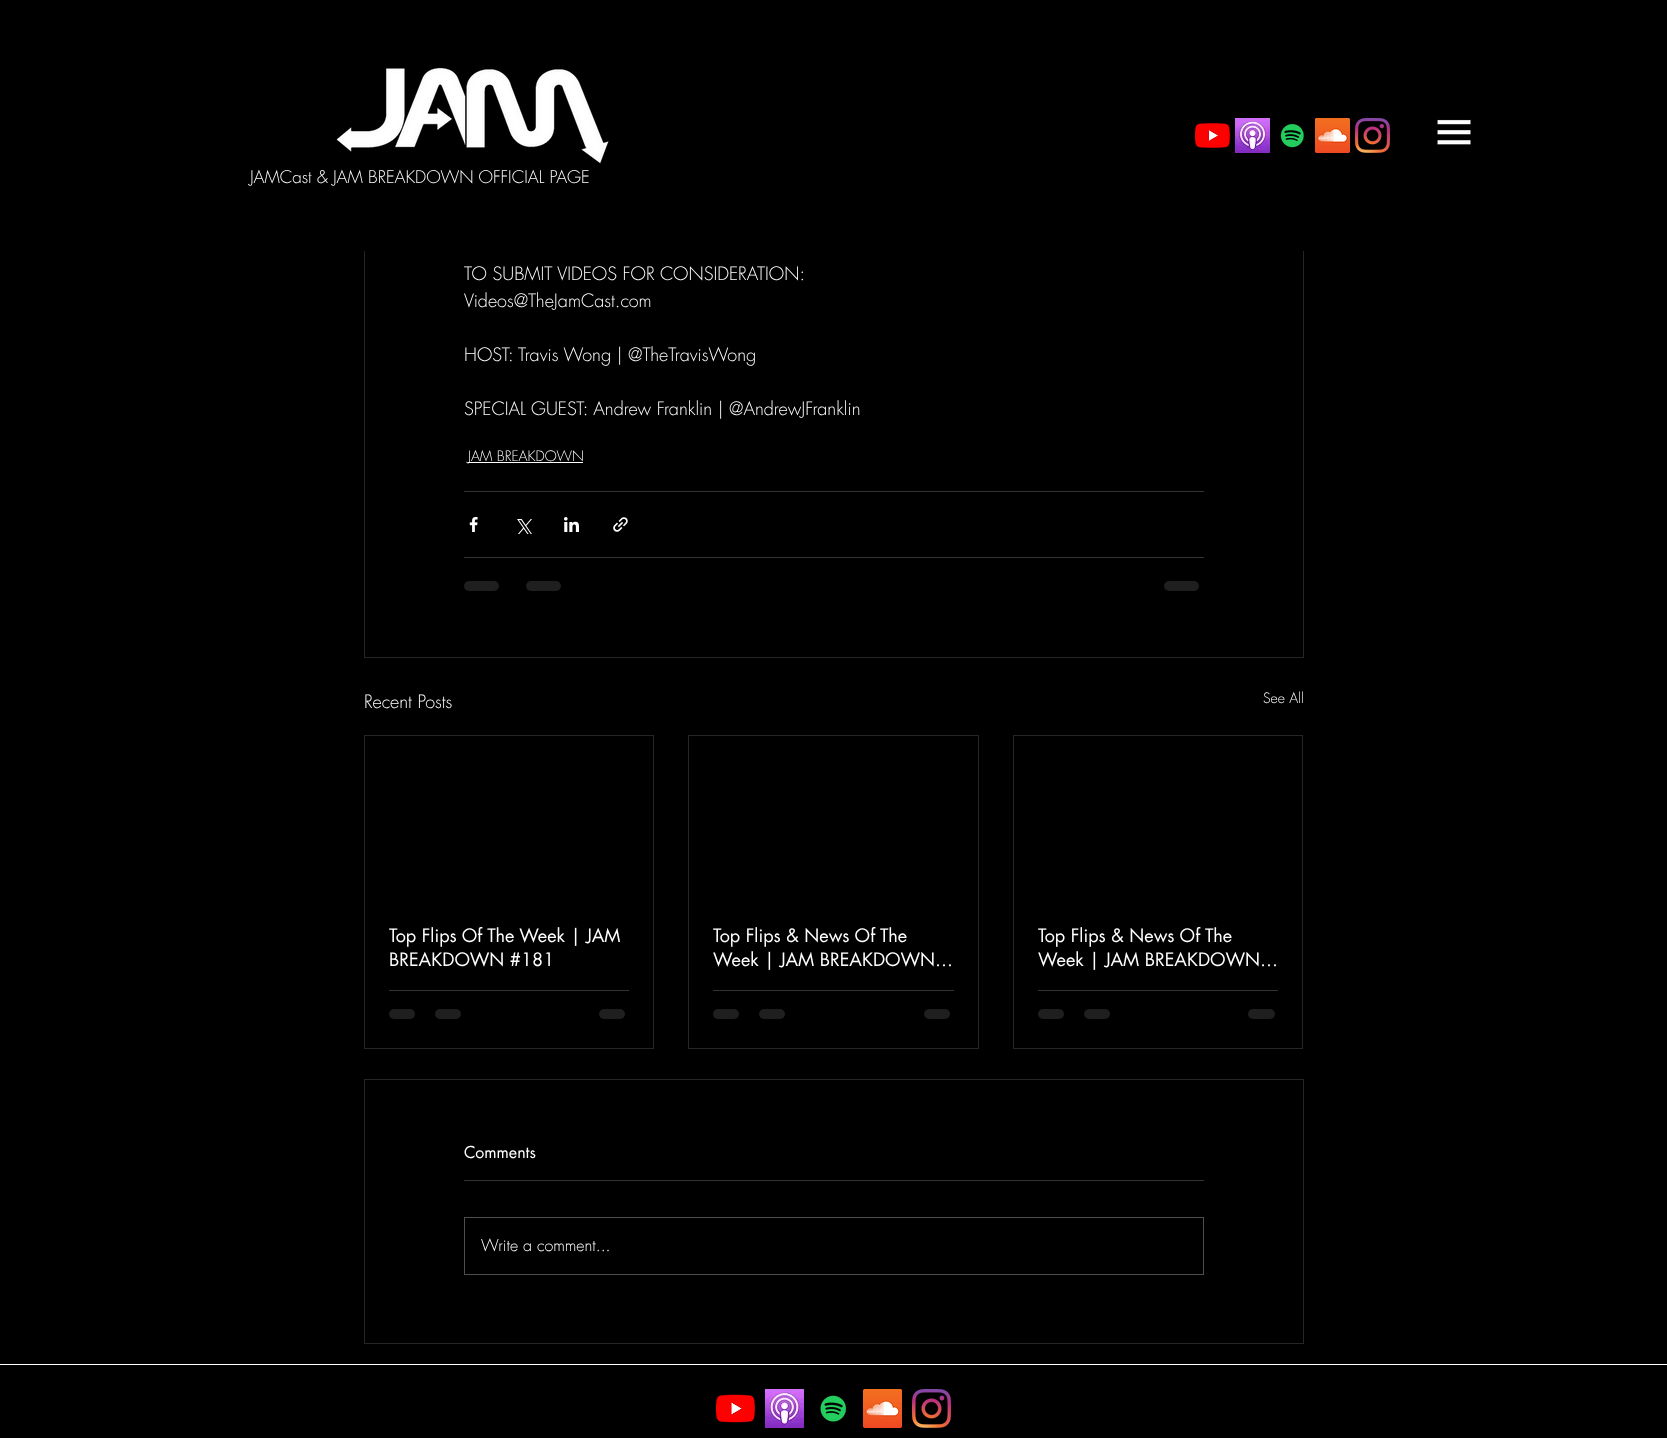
<svg xmlns="http://www.w3.org/2000/svg" width="1667" height="1438">
<rect width="100%" height="100%" fill="#000"/>
<rect x="364.5" y="-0.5" width="939" height="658" fill="none" stroke="#262626"/>
<rect x="364" width="940" height="251" fill="#000"/>
<image x="336" y="67" width="273" height="97" href="media/1.png"/>
<image x="1195" y="123" width="35" height="25" href="media/2.png"/>
<image x="1235" y="118" width="35" height="35" href="media/3.png"/>
<image x="1280" y="123" width="24" height="25" href="media/4.png"/>
<image x="1315" y="118" width="35" height="35" href="media/5.png"/>
<image x="1355" y="118" width="35" height="35" href="media/6.png"/>
<image x="1437" y="119" width="34" height="26" href="media/7.png"/>
<text x="250" y="183" style="font-family:futura;font-size:17px;font-weight:300;fill:#fff">JAMCast &amp; JAM BREAKDOWN OFFICIAL PAGE</text>
<text x="464" y="280" style="font-family:futura;font-size:18px;font-weight:300;fill:#fff">TO SUBMIT VIDEOS FOR CONSIDERATION:</text>
<text x="464" y="307" style="font-family:futura;font-size:18px;font-weight:300;fill:#fff">Videos@TheJamCast.com</text>
<text x="464" y="361" style="font-family:futura;font-size:18px;font-weight:300;fill:#fff">HOST: Travis Wong | @TheTravisWong</text>
<text x="464" y="415" style="font-family:futura;font-size:18px;font-weight:300;fill:#fff">SPECIAL GUEST: Andrew Franklin | @AndrewJFranklin</text>
<rect x="468" y="462" width="115" height="1" fill="#fff"/>
<text x="468" y="461" style="font-family:futura;font-size:14px;font-weight:300;fill:#fff">JAM BREAKDOWN</text>
<rect x="464" y="491" width="740" height="1" fill="#333"/>
<image x="469" y="517" width="9" height="15" href="media/8.png"/>
<image x="517" y="519" width="15" height="15" href="media/9.png"/>
<image x="564" y="517" width="15" height="15" href="media/10.png"/>
<image x="613" y="517" width="15" height="15" href="media/11.png"/>
<rect x="464" y="557" width="740" height="1" fill="#333"/>
<rect x="464" y="581" width="35" height="10" rx="5" fill="#1f1f1f"/>
<rect x="526" y="581" width="35" height="10" rx="5" fill="#1f1f1f"/>
<rect x="1164" y="581" width="35" height="10" rx="5" fill="#1f1f1f"/>
<text x="364" y="708" style="font-family:futura;font-size:18px;font-weight:300;fill:#fff">Recent Posts</text>
<text x="1263" y="703" style="font-family:futura;font-size:14px;font-weight:300;fill:#fff">See All</text>
<rect x="364.5" y="735.5" width="289" height="313" fill="none" stroke="#262626"/>
<text x="389" y="942" style="font-family:futura;font-size:18px;fill:#fff">Top Flips Of The Week | JAM</text>
<text x="389" y="966" style="font-family:futura;font-size:18px;fill:#fff">BREAKDOWN #181</text>
<rect x="389" y="990" width="240" height="1" fill="#333"/>
<rect x="389" y="1009" width="26" height="10" rx="5" fill="#1f1f1f"/>
<rect x="435" y="1009" width="26" height="10" rx="5" fill="#1f1f1f"/>
<rect x="599" y="1009" width="26" height="10" rx="5" fill="#1f1f1f"/>
<rect x="688.5" y="735.5" width="290" height="313" fill="none" stroke="#262626"/>
<text x="713" y="942" style="font-family:futura;font-size:18px;fill:#fff">Top Flips &amp; News Of The</text>
<text x="713" y="966" style="font-family:futura;font-size:18px;fill:#fff">Week | JAM BREAKDOWN…</text>
<rect x="713" y="990" width="241" height="1" fill="#333"/>
<rect x="713" y="1009" width="26" height="10" rx="5" fill="#1f1f1f"/>
<rect x="759" y="1009" width="26" height="10" rx="5" fill="#1f1f1f"/>
<rect x="924" y="1009" width="26" height="10" rx="5" fill="#1f1f1f"/>
<rect x="1013.5" y="735.5" width="289" height="313" fill="none" stroke="#262626"/>
<text x="1038" y="942" style="font-family:futura;font-size:18px;fill:#fff">Top Flips &amp; News Of The</text>
<text x="1038" y="966" style="font-family:futura;font-size:18px;fill:#fff">Week | JAM BREAKDOWN…</text>
<rect x="1038" y="990" width="240" height="1" fill="#333"/>
<rect x="1038" y="1009" width="26" height="10" rx="5" fill="#1f1f1f"/>
<rect x="1084" y="1009" width="26" height="10" rx="5" fill="#1f1f1f"/>
<rect x="1248" y="1009" width="27" height="10" rx="5" fill="#1f1f1f"/>
<rect x="364.5" y="1079.5" width="939" height="264" fill="none" stroke="#262626"/>
<text x="464" y="1158" style="font-family:futura;font-size:16px;fill:#fff">Comments</text>
<rect x="464" y="1180" width="740" height="1" fill="#333"/>
<rect x="464.5" y="1217.5" width="739" height="57" fill="none" stroke="#4d4d4d"/>
<text x="481" y="1251" style="font-family:futura;font-size:16px;font-weight:300;fill:#fff">Write a comment...</text>
<rect y="1364" width="1667" height="1" fill="#fff"/>
<image x="716" y="1394" width="39" height="29" href="media/12.png"/>
<image x="765" y="1389" width="39" height="39" href="media/13.png"/>
<image x="820" y="1395" width="27" height="27" href="media/14.png"/>
<image x="863" y="1389" width="39" height="39" href="media/15.png"/>
<image x="912" y="1389" width="39" height="39" href="media/16.png"/>
</svg>
